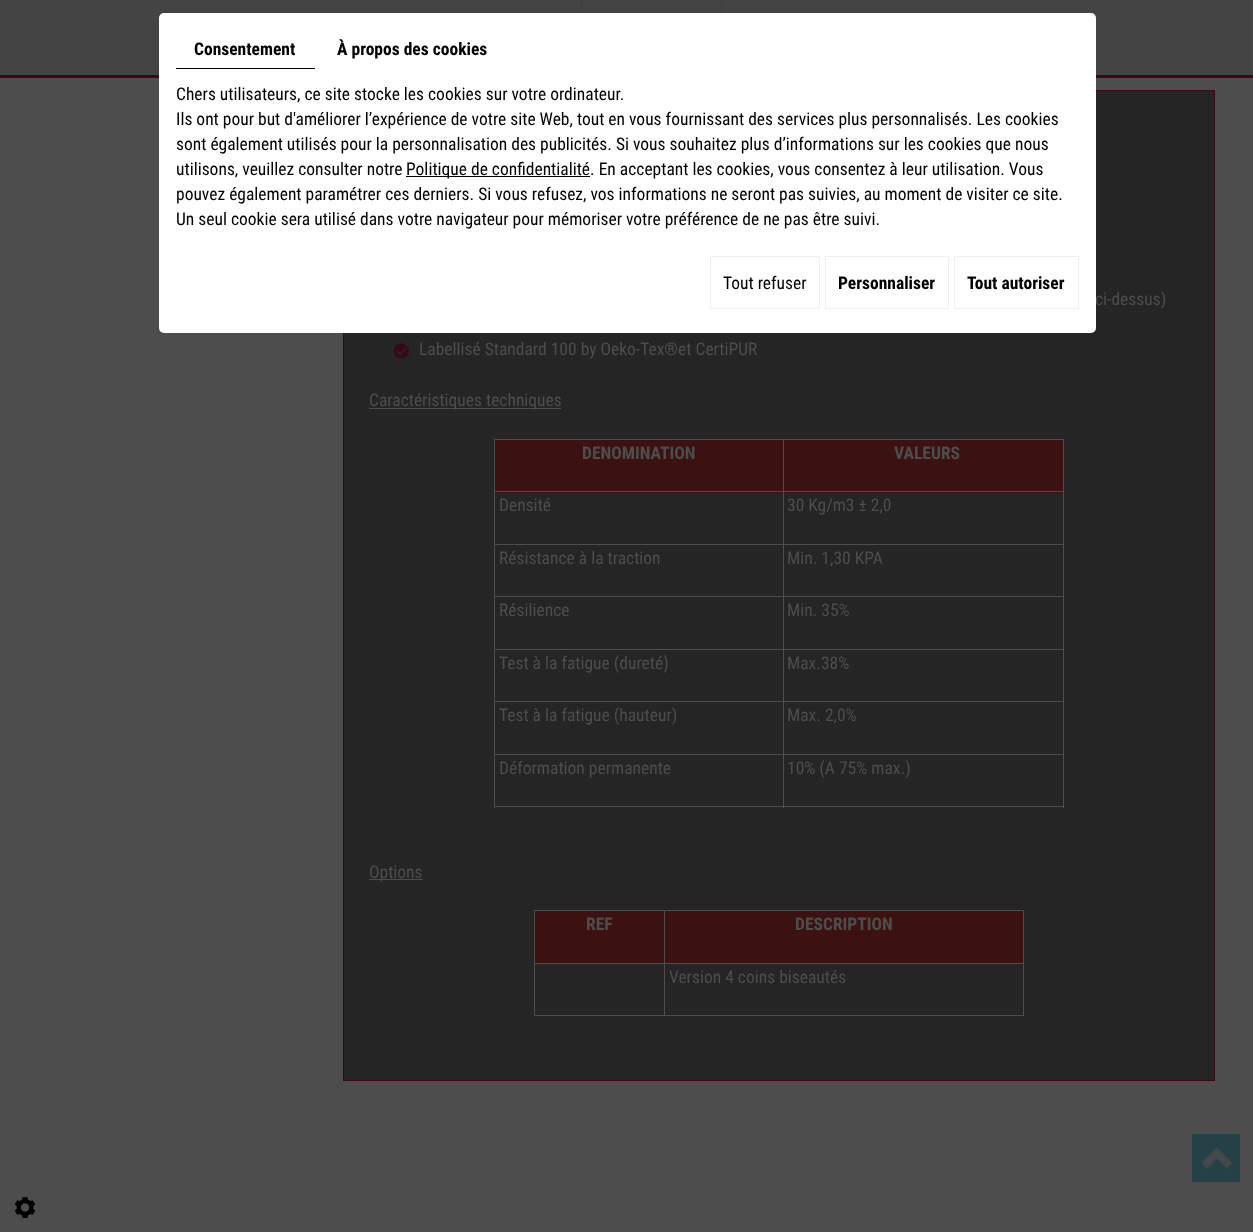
<svg xmlns="http://www.w3.org/2000/svg" width="1253" height="1232">
<rect width="100%" height="100%" fill="#4d4d4d"/>
<rect width="1253" height="75" fill="#444"/>
<rect y="75" width="1253" height="3" fill="#3b0812"/>
<rect x="343.5" y="90.5" width="871" height="990" fill="#252525" stroke="#3b0812"/>
<text x="1095" y="305" style="font-family:Roboto Condensed;font-size:17.5px;fill:#4d4d4d">ci-dessus)</text>
<rect x="159" y="13" width="937" height="320" rx="5" fill="#fff"/>
<rect x="176" y="68" width="139" height="1" fill="#000"/>
<text x="194" y="55" style="font-family:Roboto Condensed;font-size:17.5px;font-weight:bold;fill:#000">Consentement</text>
<text x="337" y="55" style="font-family:Roboto Condensed;font-size:17.5px;font-weight:bold;fill:#000">À propos des cookies</text>
<text x="176" y="100" style="font-family:Roboto Condensed;font-size:17.5px;fill:#000">Chers utilisateurs, ce site stocke les cookies sur votre ordinateur.</text>
<text x="176" y="125" style="font-family:Roboto Condensed;font-size:17.5px;fill:#000">Ils ont pour but d'améliorer l’expérience de votre site Web, tout en vous fournissant des services plus personnalisés. Les cookies</text>
<text x="176" y="150" style="font-family:Roboto Condensed;font-size:17.5px;fill:#000">sont également utilisés pour la personnalisation des publicités. Si vous souhaitez plus d’informations sur les cookies que nous</text>
<text x="176" y="175" style="font-family:Roboto Condensed;font-size:17.5px;fill:#000">utilisons, veuillez consulter notre</text>
<rect x="406" y="176" width="184" height="1" fill="#000"/>
<text x="406" y="175" style="font-family:Roboto Condensed;font-size:17.5px;fill:#000">Politique de confidentialité. En acceptant les cookies, vous consentez à leur utilisation. Vous</text>
<text x="176" y="200" style="font-family:Roboto Condensed;font-size:17.5px;fill:#000">pouvez également paramétrer ces derniers. Si vous refusez, vos informations ne seront pas suivies, au moment de visiter ce site.</text>
<text x="176" y="225" style="font-family:Roboto Condensed;font-size:17.5px;fill:#000">Un seul cookie sera utilisé dans votre navigateur pour mémoriser votre préférence de ne pas être suivi.</text>
<rect x="710.5" y="256.5" width="109" height="52" fill="none" stroke="#f0f0f0"/>
<text x="723" y="289" style="font-family:Roboto Condensed;font-size:17.5px;fill:#000">Tout refuser</text>
<rect x="825.5" y="256.5" width="123" height="52" fill="none" stroke="#f0f0f0"/>
<text x="838" y="289" style="font-family:Roboto Condensed;font-size:17.5px;font-weight:bold;fill:#000">Personnaliser</text>
<rect x="954.5" y="256.5" width="124" height="52" fill="none" stroke="#f0f0f0"/>
<text x="967" y="289" style="font-family:Roboto Condensed;font-size:17.5px;font-weight:bold;fill:#000">Tout autoriser</text>
<rect x="581" width="1" height="13" fill="#3e3e3e"/>
<rect x="721" width="1" height="13" fill="#3e3e3e"/>
<image x="397" y="333" width="9" height="1" href="media/1.png"/>
<image x="394" y="343" width="15" height="16" href="media/2.png"/>
<text x="419" y="355" style="font-family:Roboto Condensed;font-size:17.5px;fill:#4d4d4d">Labellisé Standard 100 by Oeko-Tex®et CertiPUR</text>
<rect x="369" y="408" width="192" height="1" fill="#4d4d4d"/>
<text x="369" y="406" style="font-family:Roboto Condensed;font-size:17.5px;fill:#4d4d4d">Caractéristiques techniques</text>
<rect x="494" y="439" width="570" height="1" fill="#4d4d4d"/>
<rect x="1063" y="439" width="1" height="369" fill="#4d4d4d"/>
<rect x="494" y="806" width="570" height="1" fill="#4d4d4d"/>
<rect x="494" y="439" width="1" height="369" fill="#4d4d4d"/>
<rect x="495" y="440" width="288" height="53" fill="#3b1112"/>
<text x="582" y="459" style="font-family:Roboto Condensed;font-size:17.5px;font-weight:bold;fill:#4d4d4d">DENOMINATION</text>
<rect x="784" y="440" width="279" height="53" fill="#3b1112"/>
<rect x="783" y="491" width="281" height="1" fill="#4d4d4d"/>
<rect x="783" y="544" width="281" height="1" fill="#4d4d4d"/>
<rect x="783" y="596" width="281" height="1" fill="#4d4d4d"/>
<rect x="783" y="649" width="281" height="1" fill="#4d4d4d"/>
<rect x="783" y="701" width="281" height="1" fill="#4d4d4d"/>
<rect x="783" y="754" width="281" height="1" fill="#4d4d4d"/>
<rect x="783" y="754" width="1" height="54" fill="#4d4d4d"/>
<rect x="494" y="754" width="290" height="1" fill="#4d4d4d"/>
<rect x="783" y="701" width="1" height="54" fill="#4d4d4d"/>
<rect x="494" y="701" width="290" height="1" fill="#4d4d4d"/>
<rect x="783" y="649" width="1" height="54" fill="#4d4d4d"/>
<rect x="494" y="649" width="290" height="1" fill="#4d4d4d"/>
<rect x="783" y="596" width="1" height="54" fill="#4d4d4d"/>
<rect x="494" y="596" width="290" height="1" fill="#4d4d4d"/>
<rect x="783" y="544" width="1" height="54" fill="#4d4d4d"/>
<rect x="494" y="544" width="290" height="1" fill="#4d4d4d"/>
<rect x="783" y="491" width="1" height="54" fill="#4d4d4d"/>
<rect x="494" y="491" width="290" height="1" fill="#4d4d4d"/>
<rect x="783" y="439" width="1" height="54" fill="#4d4d4d"/>
<text x="894" y="459" style="font-family:Roboto Condensed;font-size:17.5px;font-weight:bold;fill:#4d4d4d">VALEURS</text>
<text x="499" y="511" style="font-family:Roboto Condensed;font-size:17.5px;fill:#4d4d4d">Densité</text>
<text x="787" y="511" style="font-family:Roboto Condensed;font-size:17.5px;fill:#4d4d4d">30 Kg/m3 ± 2,0</text>
<text x="499" y="564" style="font-family:Roboto Condensed;font-size:17.5px;fill:#4d4d4d">Résistance à la traction</text>
<text x="787" y="564" style="font-family:Roboto Condensed;font-size:17.5px;fill:#4d4d4d">Min. 1,30 KPA</text>
<text x="499" y="616" style="font-family:Roboto Condensed;font-size:17.5px;fill:#4d4d4d">Résilience</text>
<text x="787" y="616" style="font-family:Roboto Condensed;font-size:17.5px;fill:#4d4d4d">Min. 35%</text>
<text x="499" y="669" style="font-family:Roboto Condensed;font-size:17.5px;fill:#4d4d4d">Test à la fatigue (dureté)</text>
<text x="787" y="669" style="font-family:Roboto Condensed;font-size:17.5px;fill:#4d4d4d">Max.38%</text>
<text x="499" y="721" style="font-family:Roboto Condensed;font-size:17.5px;fill:#4d4d4d">Test à la fatigue (hauteur)</text>
<text x="787" y="721" style="font-family:Roboto Condensed;font-size:17.5px;fill:#4d4d4d">Max. 2,0%</text>
<text x="499" y="774" style="font-family:Roboto Condensed;font-size:17.5px;fill:#4d4d4d">Déformation permanente</text>
<text x="787" y="774" style="font-family:Roboto Condensed;font-size:17.5px;fill:#4d4d4d">10% (A 75% max.)</text>
<rect x="369" y="879" width="54" height="1" fill="#4d4d4d"/>
<text x="369" y="878" style="font-family:Roboto Condensed;font-size:17.5px;fill:#4d4d4d">Options</text>
<rect x="534" y="910" width="490" height="1" fill="#4d4d4d"/>
<rect x="1023" y="910" width="1" height="106" fill="#4d4d4d"/>
<rect x="534" y="1015" width="490" height="1" fill="#4d4d4d"/>
<rect x="534" y="910" width="1" height="106" fill="#4d4d4d"/>
<rect x="535" y="911" width="129" height="52" fill="#3b1112"/>
<text x="586" y="930" style="font-family:Roboto Condensed;font-size:17.5px;font-weight:bold;fill:#4d4d4d">REF</text>
<rect x="665" y="911" width="358" height="52" fill="#3b1112"/>
<rect x="664" y="963" width="360" height="1" fill="#4d4d4d"/>
<rect x="664" y="963" width="1" height="53" fill="#4d4d4d"/>
<rect x="534" y="963" width="131" height="1" fill="#4d4d4d"/>
<rect x="664" y="910" width="1" height="54" fill="#4d4d4d"/>
<text x="795" y="930" style="font-family:Roboto Condensed;font-size:17.5px;font-weight:bold;fill:#4d4d4d">DESCRIPTION</text>
<text x="669" y="983" style="font-family:Roboto Condensed;font-size:17.5px;fill:#4d4d4d">Version 4 coins biseautés</text>
<rect x="1192" y="1134" width="48" height="48" fill="#1c3d46cc"/>
<image x="1201" y="1147" width="32" height="23" href="media/3.png"/>
<image x="14" y="1197" width="22" height="21" href="media/4.png"/>
</svg>
